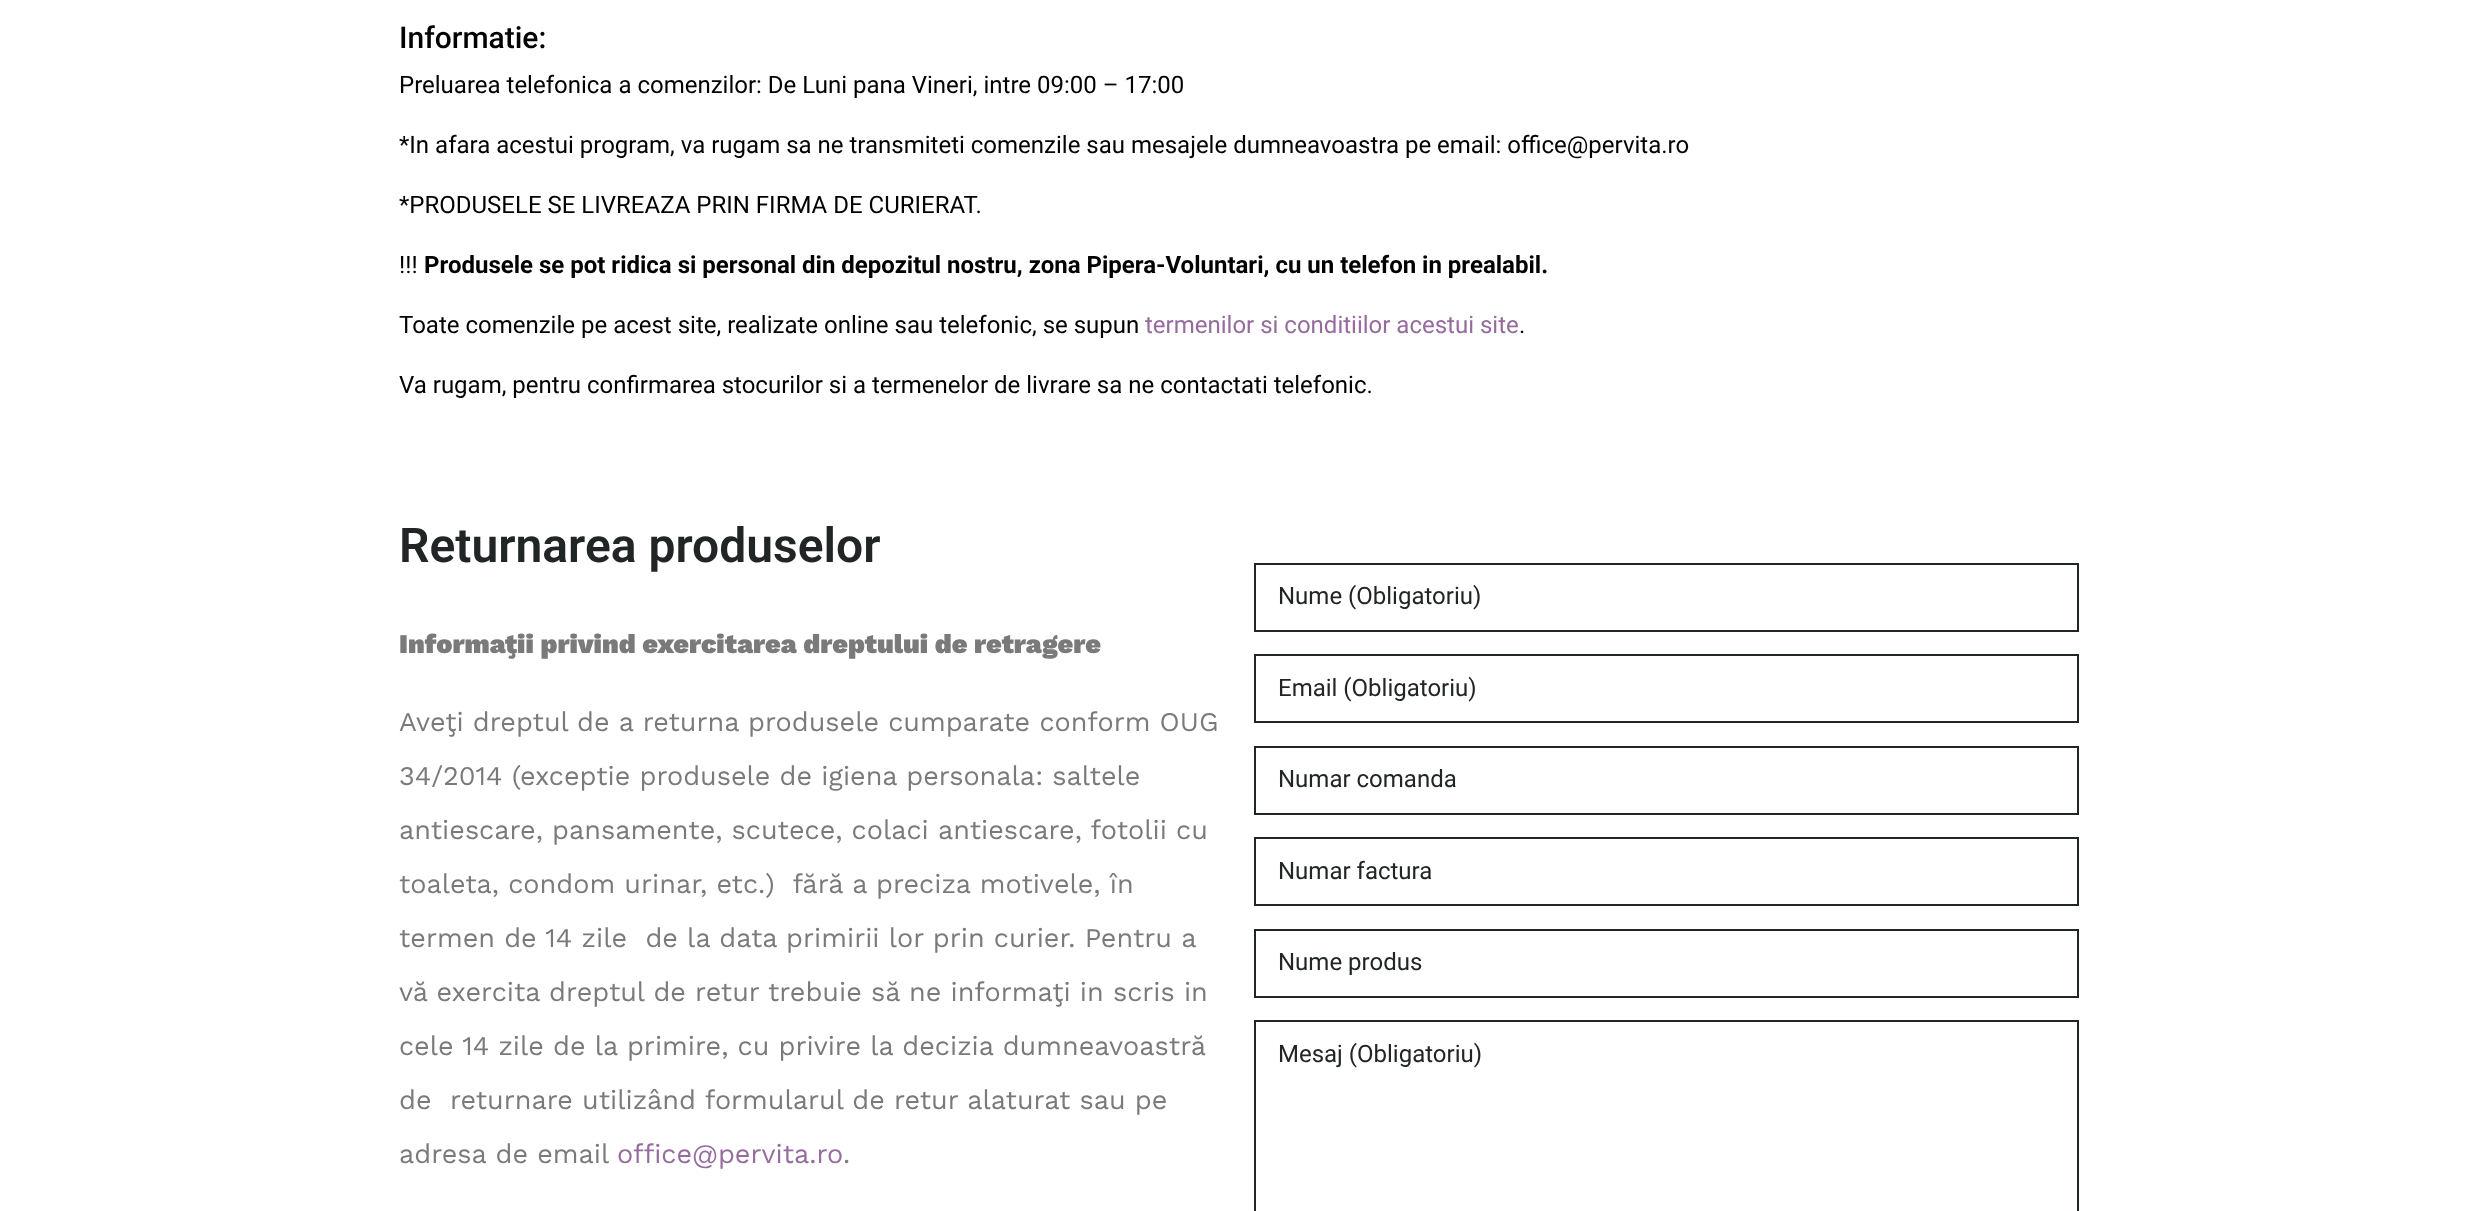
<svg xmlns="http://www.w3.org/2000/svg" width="2478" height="1211">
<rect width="100%" height="100%" fill="#fff"/>
<text x="399" y="48" style="font-family:Roboto;font-size:30px;font-weight:500;fill:#020101">Informatie:</text>
<text x="399" y="93" style="font-family:Roboto;font-size:24px;fill:#020101">Preluarea telefonica a comenzilor: De Luni pana Vineri, intre 09:00 – 17:00</text>
<text x="399" y="153" style="font-family:Roboto;font-size:24px;fill:#020101">*In afara acestui program, va rugam sa ne transmiteti comenzile sau mesajele dumneavoastra pe email: office@pervita.ro</text>
<text x="399" y="213" style="font-family:Roboto;font-size:24px;fill:#020101">*PRODUSELE SE LIVREAZA PRIN FIRMA DE CURIERAT.</text>
<text x="399" y="273" style="font-family:Roboto;font-size:24px;fill:#020101">!!!</text>
<text x="424" y="273" style="font-family:Roboto;font-size:24px;font-weight:bold;fill:#020101">Produsele se pot ridica si personal din depozitul nostru, zona Pipera-Voluntari, cu un telefon in prealabil.</text>
<text x="399" y="333" style="font-family:Roboto;font-size:24px;fill:#020101">Toate comenzile pe acest site, realizate online sau telefonic, se supun</text>
<text x="1145" y="333" style="font-family:Roboto;font-size:24px;fill:#966b9d">termenilor si conditiilor acestui site</text>
<text x="1519" y="333" style="font-family:Roboto;font-size:24px;fill:#020101">.</text>
<text x="399" y="393" style="font-family:Roboto;font-size:24px;fill:#020101">Va rugam, pentru confirmarea stocurilor si a termenelor de livrare sa ne contactati telefonic.</text>
<text x="399" y="562" style="font-family:Roboto;font-size:48px;font-weight:600;fill:#212526">Returnarea produselor</text>
<text x="399" y="653" style="font-family:Work Sans;font-size:27px;font-weight:900;fill:#7a7a7a">Informaţii privind exercitarea dreptului de retragere</text>
<text x="399" y="731" style="font-family:Work Sans;font-size:27px;fill:#7a7a7a">Aveţi dreptul de a returna produsele cumparate conform OUG</text>
<text x="399" y="785" style="font-family:Work Sans;font-size:27px;fill:#7a7a7a">34/2014 (exceptie produsele de igiena personala: saltele</text>
<text x="399" y="839" style="font-family:Work Sans;font-size:27px;fill:#7a7a7a">antiescare, pansamente, scutece, colaci antiescare, fotolii cu</text>
<text x="399" y="893" style="font-family:Work Sans;font-size:27px;fill:#7a7a7a" xml:space="preserve">toaleta, condom urinar, etc.)  fără a preciza motivele, în</text>
<text x="399" y="947" style="font-family:Work Sans;font-size:27px;fill:#7a7a7a" xml:space="preserve">termen de 14 zile  de la data primirii lor prin curier. Pentru a</text>
<text x="399" y="1001" style="font-family:Work Sans;font-size:27px;fill:#7a7a7a">vă exercita dreptul de retur trebuie să ne informaţi in scris in</text>
<text x="399" y="1055" style="font-family:Work Sans;font-size:27px;fill:#7a7a7a">cele 14 zile de la primire, cu privire la decizia dumneavoastră</text>
<text x="399" y="1109" style="font-family:Work Sans;font-size:27px;fill:#7a7a7a" xml:space="preserve">de  returnare utilizând formularul de retur alaturat sau pe</text>
<text x="399" y="1163" style="font-family:Work Sans;font-size:27px;fill:#7a7a7a">adresa de email</text>
<text x="617" y="1163" style="font-family:Work Sans;font-size:27px;fill:#966b9d">office@pervita.ro</text>
<text x="843" y="1163" style="font-family:Work Sans;font-size:27px;fill:#7a7a7a">.</text>
<rect x="1255" y="564" width="823" height="67" fill="none" stroke="#212526" stroke-width="2"/>
<text x="1278" y="604" style="font-family:Roboto;font-size:24px;fill:#212526">Nume (Obligatoriu)</text>
<rect x="1255" y="655" width="823" height="67" fill="none" stroke="#212526" stroke-width="2"/>
<text x="1278" y="696" style="font-family:Roboto;font-size:24px;fill:#212526">Email (Obligatoriu)</text>
<rect x="1255" y="747" width="823" height="67" fill="none" stroke="#212526" stroke-width="2"/>
<text x="1278" y="787" style="font-family:Roboto;font-size:24px;fill:#212526">Numar comanda</text>
<rect x="1255" y="838" width="823" height="67" fill="none" stroke="#212526" stroke-width="2"/>
<text x="1278" y="879" style="font-family:Roboto;font-size:24px;fill:#212526">Numar factura</text>
<rect x="1255" y="930" width="823" height="67" fill="none" stroke="#212526" stroke-width="2"/>
<text x="1278" y="970" style="font-family:Roboto;font-size:24px;fill:#212526">Nume produs</text>
<rect x="1255" y="1021" width="823" height="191" fill="none" stroke="#212526" stroke-width="2"/>
<text x="1278" y="1062" style="font-family:Roboto;font-size:24px;fill:#212526">Mesaj (Obligatoriu)</text>
</svg>
